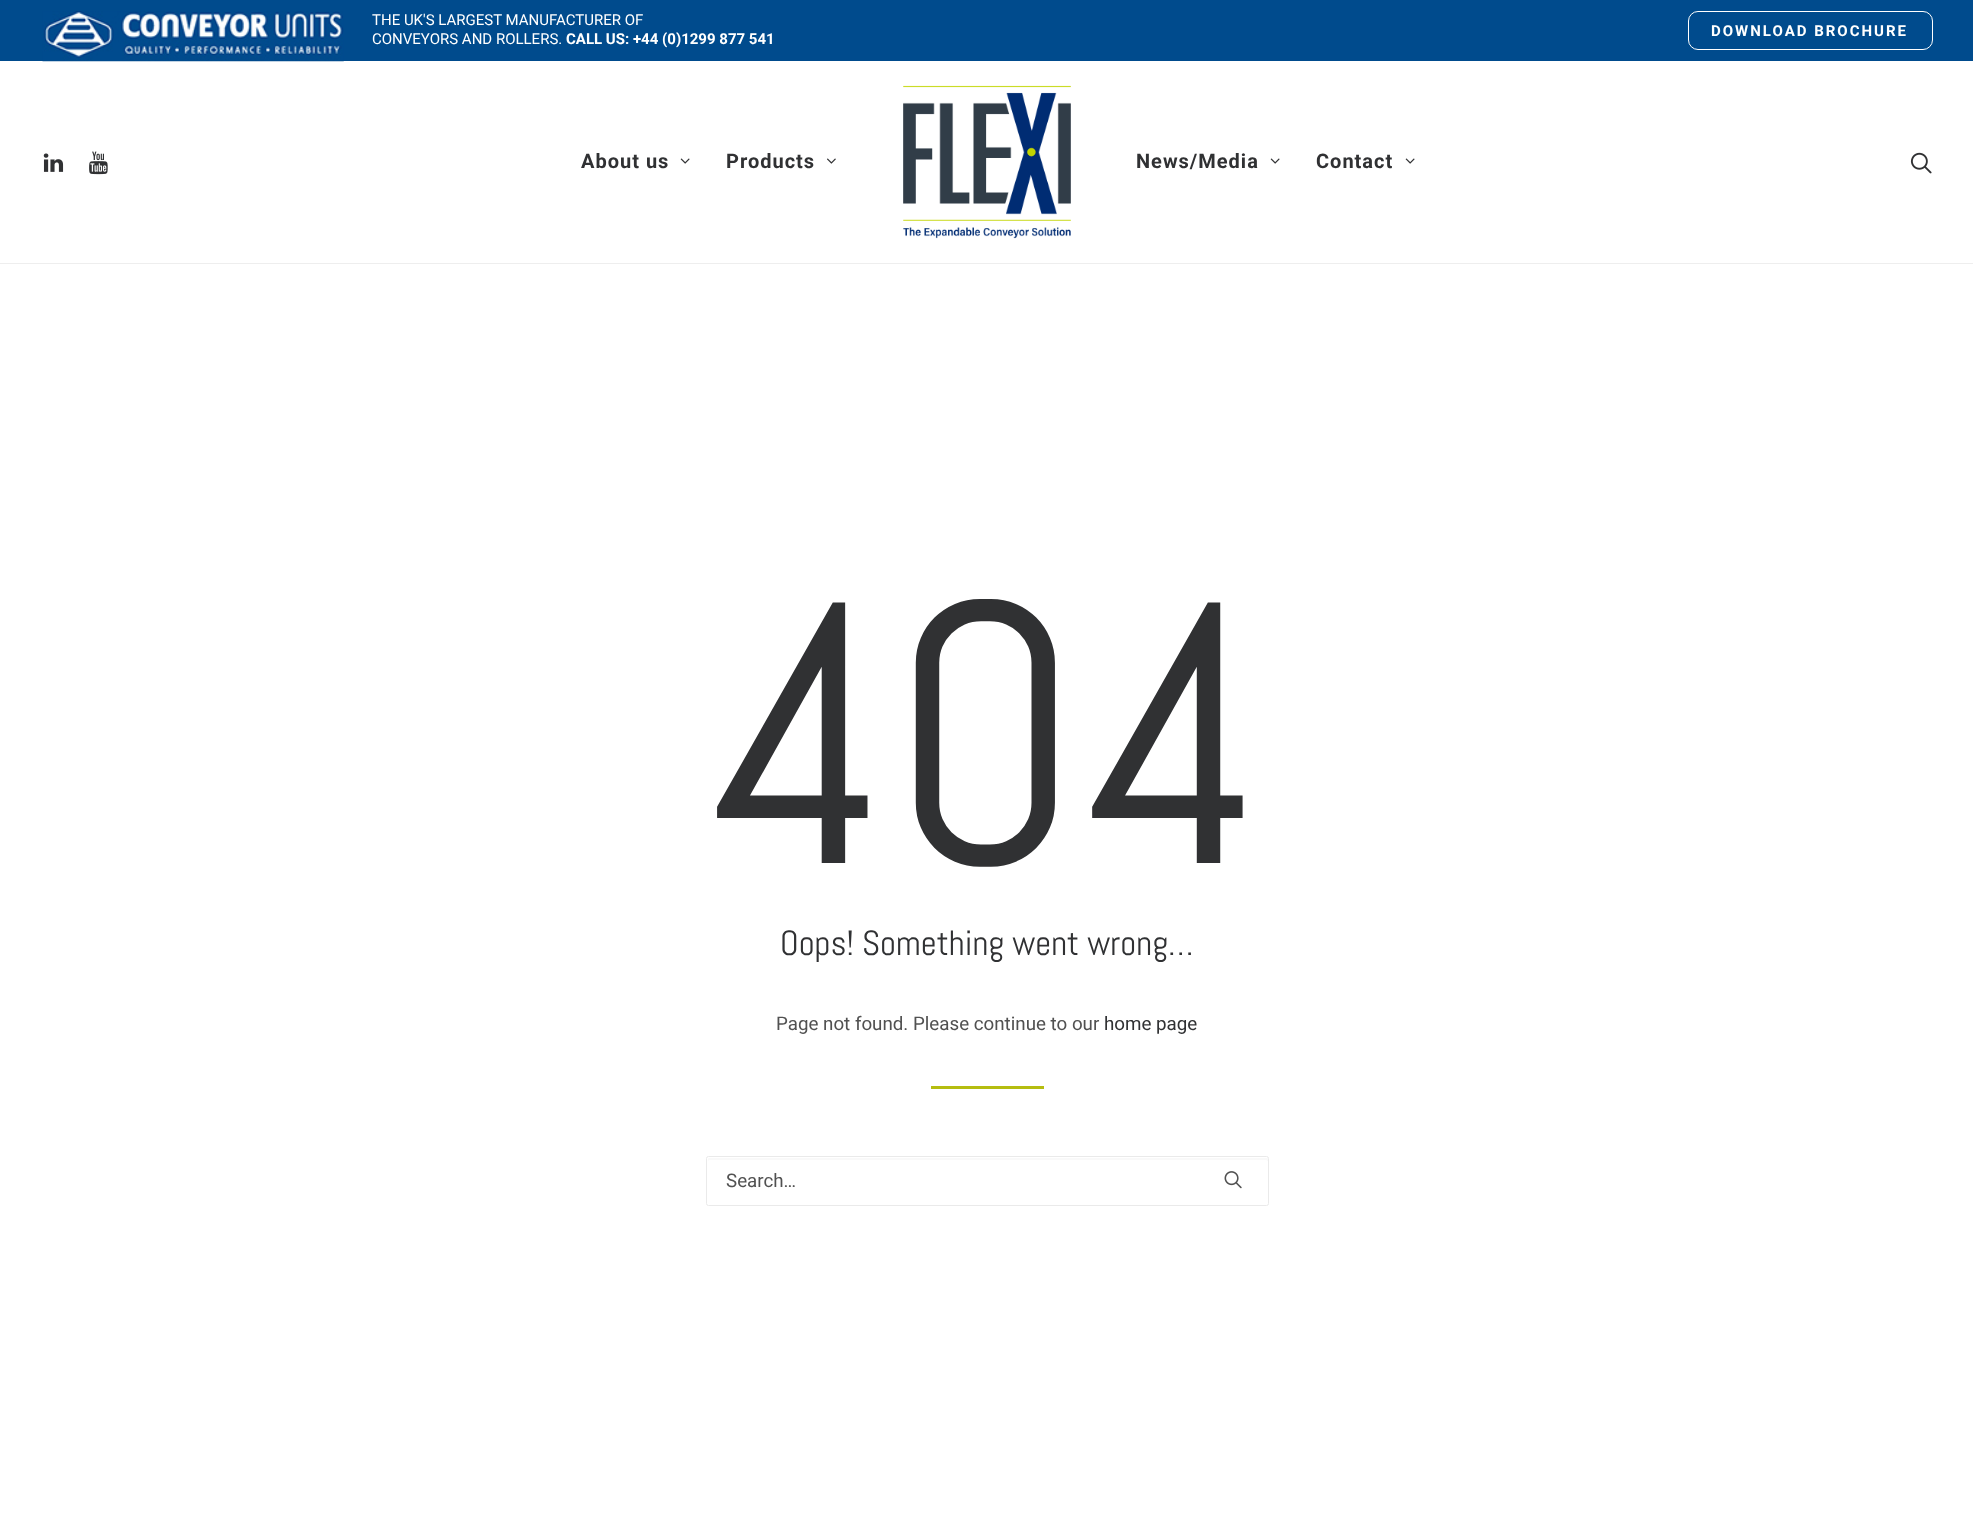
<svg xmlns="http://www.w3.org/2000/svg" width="1973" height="1538">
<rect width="100%" height="100%" fill="#fff"/>
<rect width="1973" height="61" fill="#004b8d"/>
<image x="42" y="11" width="302" height="51" href="media/1.png"/>
<text x="372" y="25" style="font-family:Roboto;font-size:15px;fill:#fff">THE UK'S LARGEST MANUFACTURER OF</text>
<text x="372" y="44" style="font-family:Roboto;font-size:15px;fill:#fff">CONVEYORS AND ROLLERS.</text>
<text x="566" y="44" style="font-family:Roboto;font-size:15px;font-weight:bold;fill:#fff">CALL US: +44 (0)1299 877 541</text>
<rect x="1688.5" y="11.5" width="244" height="38" rx="9.5" fill="none" stroke="#fff"/>
<text x="1711" y="36" style="font-family:Roboto;font-size:15px;font-weight:bold;letter-spacing:2px;fill:#fff">DOWNLOAD BROCHURE</text>
<rect y="263" width="1973" height="1" fill="#eee"/>
<image x="43" y="153" width="21" height="19" href="media/2.png"/>
<image x="89" y="151" width="19" height="24" href="media/3.png"/>
<text x="581" y="168" style="font-family:Roboto;font-size:20px;font-weight:bold;letter-spacing:1px;fill:#303133">About us</text>
<image x="680" y="158" width="10" height="6" href="media/4.png"/>
<text x="726" y="168" style="font-family:Roboto;font-size:20px;font-weight:bold;letter-spacing:1px;fill:#303133">Products</text>
<image x="827" y="158" width="9" height="6" href="media/5.png"/>
<image x="903" y="85" width="168" height="154" href="media/6.png"/>
<text x="1136" y="168" style="font-family:Roboto;font-size:20px;font-weight:bold;letter-spacing:1px;fill:#303133">News/Media</text>
<image x="1270" y="158" width="10" height="6" href="media/4.png"/>
<text x="1316" y="168" style="font-family:Roboto;font-size:20px;font-weight:bold;letter-spacing:1px;fill:#303133">Contact</text>
<image x="1405" y="158" width="10" height="6" href="media/4.png"/>
<image x="1910" y="152" width="22" height="22" href="media/7.png"/>
<text x="706" y="863" style="font-family:Abel;font-size:372px;fill:#303133">404</text>
<text x="780" y="955" style="font-family:Abel;font-size:35px;fill:#303133">Oops! Something went wrong…</text>
<text x="776" y="1030" style="font-family:Roboto;font-size:18.75px;fill:#515151">Page not found. Please continue to our</text>
<text x="1104" y="1030" style="font-family:Roboto;font-size:18.75px;fill:#303133">home page</text>
<rect x="931" y="1086" width="113" height="3" fill="#b5bd10"/>
<path d="M709 1160h557l2 1v-3h-1h-558c-1 0-1 2-1 3z" fill="#f9f9f9"/>
<rect x="706.5" y="1156.5" width="562" height="49" rx="2" fill="none" stroke="#eaeaea"/>
<text x="726" y="1187" style="font-family:Roboto;font-size:18.75px;fill:#515151">Search…</text>
<image x="1224" y="1171" width="18" height="18" href="media/8.png"/>
</svg>
